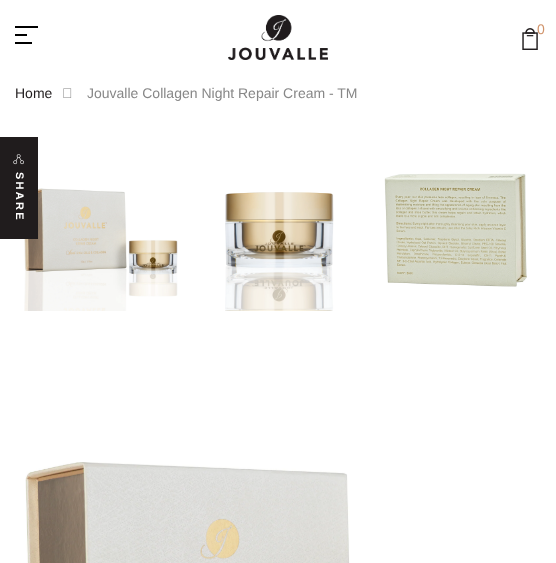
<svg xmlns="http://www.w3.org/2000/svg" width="556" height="563">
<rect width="100%" height="100%" fill="#fff"/>
<rect x="15" y="26" width="23" height="2" fill="#000"/>
<rect x="15" y="34" width="12" height="2" fill="#000"/>
<rect x="15" y="42" width="17" height="2" fill="#000"/>
<image x="228" y="15" width="100" height="45" href="media/1.png"/>
<image x="522" y="28" width="16" height="22" href="media/2.png"/>
<text x="537" y="34" style="font-family:Liberation Sans;font-size:14px;fill:#d0936a">0</text>
<text x="15" y="98" style="font-family:Liberation Sans;font-size:14px;fill:#201c1d">Home</text>
<image x="63" y="88" width="9" height="10" href="media/3.png"/>
<text x="87" y="98" style="font-family:Liberation Sans;font-size:14px;fill:#878787">Jouvalle Collagen Night Repair Cream - TM</text>
<image x="23" y="188" width="155" height="123" href="media/4.png"/>
<image x="225" y="192" width="109" height="119" href="media/5.png"/>
<image x="384" y="173" width="143" height="114" href="media/6.png"/>
<image x="25" y="462" width="325" height="101" href="media/7.png"/>
<rect y="137" width="38" height="102" fill="#201c1d"/>
<image x="13" y="154" width="11" height="11" href="media/8.png"/>
<text x="16" y="172" transform="rotate(90 16 172)" style="font-family:Liberation Sans;font-size:11px;font-weight:bold;letter-spacing:2.25px;fill:#fff">SHARE</text>
</svg>
